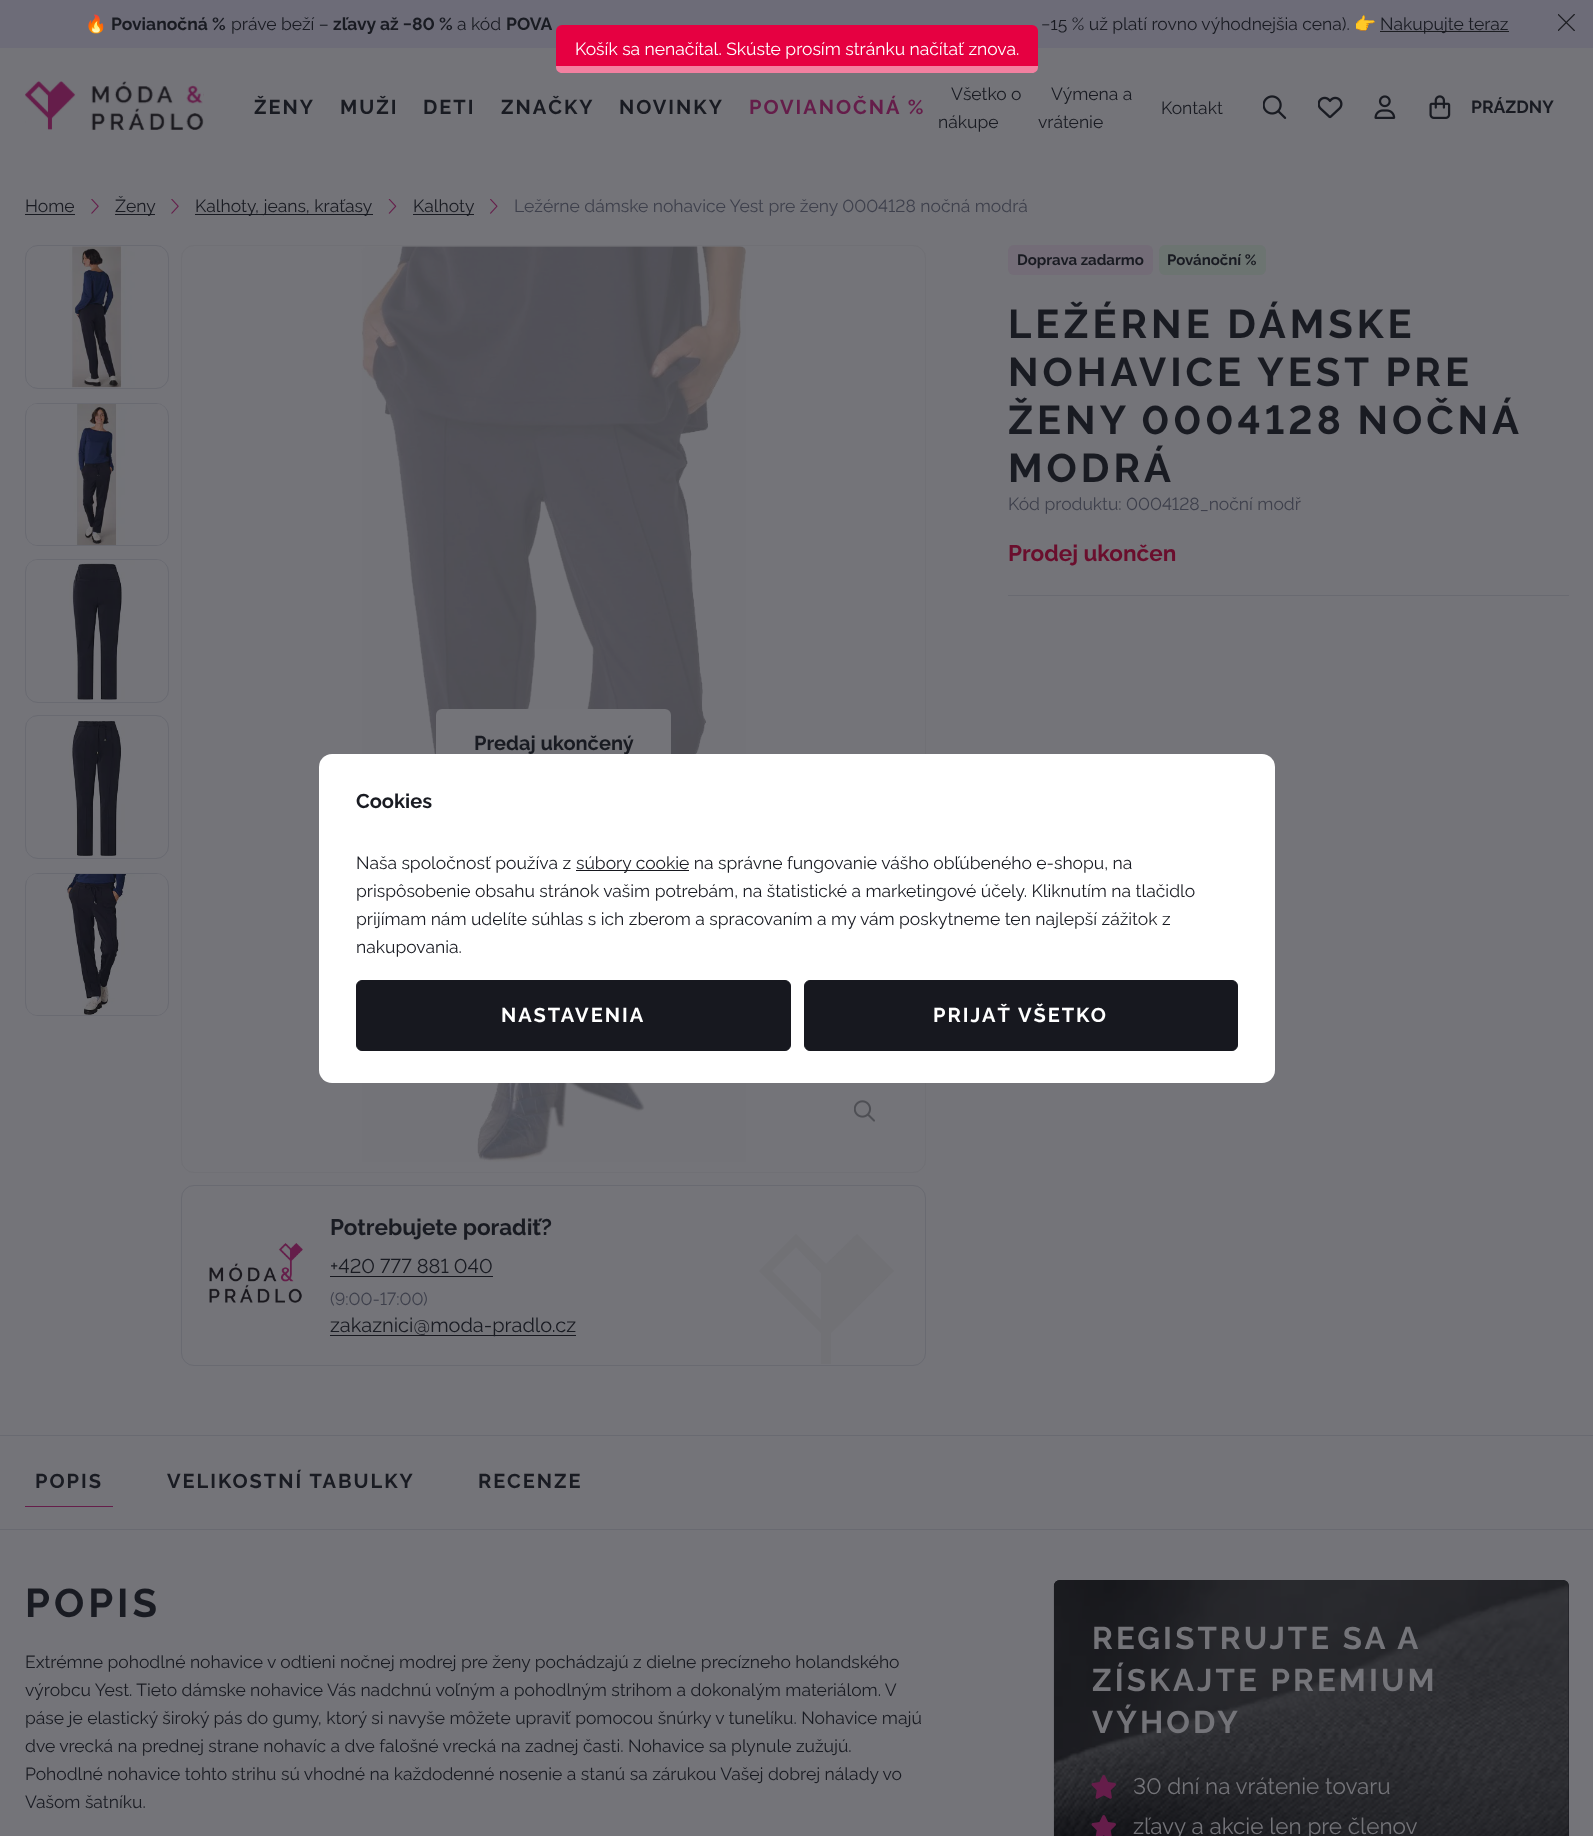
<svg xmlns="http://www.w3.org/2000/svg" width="1593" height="1836">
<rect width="100%" height="100%" fill="#747479"/>
<rect width="1593" height="48" fill="#6d6c78"/>
<text x="85" y="30" style="font-family:Noto Color Emoji;font-size:17.5px;fill:#191b22">🔥</text>
<text x="111" y="30" style="font-family:Raleway;font-size:17.5px;font-weight:bold;fill:#191b22">Povianočná %</text>
<text x="231" y="30" style="font-family:Raleway;font-size:17.5px;fill:#191b22">práve beží –</text>
<text x="333" y="30" style="font-family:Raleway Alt;font-size:17.5px;font-weight:bold;fill:#191b22">zľavy až −80 %</text>
<text x="457" y="30" style="font-family:Raleway;font-size:17.5px;fill:#191b22">a kód</text>
<text x="506" y="30" style="font-family:Raleway;font-size:17.5px;font-weight:bold;fill:#191b22">POVA</text>
<text x="1041" y="30" style="font-family:Raleway;font-size:17.5px;fill:#191b22">−15 % už platí rovno výhodnejšia cena).</text>
<text x="1354" y="30" style="font-family:Noto Color Emoji;font-size:17.5px;fill:#191b22">👉</text>
<rect x="1380" y="31" width="129" height="1" fill="#1c1d21"/>
<text x="1380" y="30" style="font-family:Raleway;font-size:17.5px;fill:#191b22">Nakupujte teraz</text>
<image x="1558" y="14" width="17" height="17" href="media/1.png"/>
<rect x="556" y="25" width="482" height="48" rx="6" fill="#e60041"/>
<text x="575" y="55" style="font-family:Raleway;font-size:17.5px;fill:#fff">Košík sa nenačítal. Skúste prosím stránku načítať znova.</text>
<path d="M556 66h482v1c0 3.5-2.5 6-6 6h-470c-3.5 0-6-2.5-6-6z" fill="#ffffff80"/>
<image x="25" y="81" width="179" height="49" href="media/2.png"/>
<text x="254" y="114" style="font-family:Raleway;font-size:20px;font-weight:bold;letter-spacing:2px;fill:#191b22">ŽENY</text>
<text x="340" y="114" style="font-family:Raleway;font-size:20px;font-weight:bold;letter-spacing:2px;fill:#191b22">MUŽI</text>
<text x="423" y="114" style="font-family:Raleway;font-size:20px;font-weight:bold;letter-spacing:2px;fill:#191b22">DETI</text>
<text x="501" y="114" style="font-family:Raleway;font-size:20px;font-weight:bold;letter-spacing:2px;fill:#191b22">ZNAČKY</text>
<text x="619" y="114" style="font-family:Raleway;font-size:20px;font-weight:bold;letter-spacing:2px;fill:#191b22">NOVINKY</text>
<text x="749" y="114" style="font-family:Raleway;font-size:20px;font-weight:bold;letter-spacing:2px;fill:#651d4a">POVIANOČNÁ %</text>
<text x="951" y="100" style="font-family:Raleway;font-size:17.5px;fill:#191b22">Všetko o</text>
<text x="938" y="128" style="font-family:Raleway;font-size:17.5px;fill:#191b22">nákupe</text>
<text x="1051" y="100" style="font-family:Raleway;font-size:17.5px;fill:#191b22">Výmena a</text>
<text x="1038" y="128" style="font-family:Raleway;font-size:17.5px;fill:#191b22">vrátenie</text>
<text x="1161" y="114" style="font-family:Raleway;font-size:17.5px;fill:#191b22">Kontakt</text>
<image x="1263" y="95" width="24" height="24" href="media/3.png"/>
<image x="1318" y="96" width="25" height="23" href="media/4.png"/>
<image x="1374" y="95" width="22" height="24" href="media/5.png"/>
<image x="1429" y="95" width="22" height="24" href="media/6.png"/>
<text x="1471" y="113" style="font-family:Raleway;font-size:17.5px;font-weight:bold;fill:#191b22">PRÁZDNY</text>
<text x="25" y="212" style="font-family:Raleway;font-size:17.5px;fill:#191b22">Home</text>
<rect x="25" y="214" width="50" height="1" fill="#191b22"/>
<image x="91" y="199" width="8" height="15" href="media/7.png"/>
<rect x="115" y="214" width="40" height="1" fill="#191b22"/>
<text x="115" y="212" style="font-family:Raleway;font-size:17.5px;fill:#191b22">Ženy</text>
<image x="171" y="199" width="8" height="15" href="media/7.png"/>
<rect x="195" y="214" width="178" height="1" fill="#191b22"/>
<text x="195" y="212" style="font-family:Raleway;font-size:17.5px;fill:#191b22">Kalhoty, jeans, kraťasy</text>
<image x="388" y="199" width="9" height="15" href="media/8.png"/>
<rect x="413" y="214" width="61" height="1" fill="#191b22"/>
<text x="413" y="212" style="font-family:Raleway;font-size:17.5px;fill:#191b22">Kalhoty</text>
<image x="490" y="199" width="8" height="15" href="media/9.png"/>
<text x="514" y="212" style="font-family:Raleway Alt;font-size:17.5px;fill:#3e404c">Ležérne dámske nohavice Yest pre ženy 0004128 nočná modrá</text>
<rect x="1008" y="245" width="145" height="30" rx="6" fill="#736c77"/>
<text x="1017" y="265" style="font-family:Raleway;font-size:15px;font-weight:bold;fill:#191b22">Doprava zadarmo</text>
<rect x="1159" y="245" width="107" height="30" rx="6" fill="#6c7471"/>
<text x="1167" y="265" style="font-family:Raleway;font-size:15px;font-weight:bold;fill:#191b22">Povánoční %</text>
<text x="1008" y="338" style="font-family:Raleway;font-size:40px;font-weight:bold;letter-spacing:4px;fill:#191b22">LEŽÉRNE DÁMSKE</text>
<text x="1008" y="386" style="font-family:Raleway;font-size:40px;font-weight:bold;letter-spacing:4px;fill:#191b22">NOHAVICE YEST PRE</text>
<text x="1008" y="434" word-spacing="-1" style="font-family:Raleway Alt;font-size:40px;font-weight:bold;letter-spacing:4px;fill:#191b22">ŽENY 0004128 NOČNÁ</text>
<text x="1008" y="482" style="font-family:Raleway;font-size:40px;font-weight:bold;letter-spacing:4px;fill:#191b22">MODRÁ</text>
<text x="1008" y="510" style="font-family:Raleway;font-size:17.5px;fill:#3e404c">Kód produktu:</text>
<text x="1126" y="510" style="font-family:Raleway Alt;font-size:17.5px;fill:#3e404c">0004128_noční modř</text>
<rect x="1008" y="595" width="561" height="1" fill="#696a71"/>
<text x="1008" y="561" style="font-family:Raleway;font-size:22.5px;font-weight:bold;fill:#6a0e2d">Prodej ukončen</text>
<rect x="25.5" y="245.5" width="143" height="143" rx="12.5" fill="none" stroke="#696a71"/>
<image x="27" y="246" width="135" height="142" href="media/10.png"/>
<rect x="25.5" y="403.5" width="143" height="142" rx="12.5" fill="none" stroke="#696a71"/>
<image x="27" y="404" width="140" height="141" href="media/11.png"/>
<rect x="25.5" y="559.5" width="143" height="143" rx="12.5" fill="none" stroke="#696a71"/>
<image x="27" y="560" width="140" height="140" href="media/12.png"/>
<rect x="25.5" y="715.5" width="143" height="143" rx="12.5" fill="none" stroke="#696a71"/>
<image x="27" y="717" width="135" height="139" href="media/13.png"/>
<rect x="25.5" y="873.5" width="143" height="142" rx="12.5" fill="none" stroke="#696a71"/>
<image x="27" y="874" width="140" height="141" href="media/14.png"/>
<rect x="181.5" y="245.5" width="744" height="927" rx="12.5" fill="none" stroke="#707075"/>
<image x="361" y="246" width="385" height="916" href="media/15.png"/>
<image x="854" y="1100" width="21" height="22" href="media/16.png"/>
<rect x="436" y="709" width="235" height="70" rx="6" fill="#747479"/>
<text x="474" y="750" style="font-family:Raleway;font-size:20px;font-weight:bold;fill:#191b22">Predaj ukončený</text>
<rect x="181.5" y="1185.5" width="744" height="180" rx="12.5" fill="none" stroke="#696a71"/>
<image x="209" y="1243" width="94" height="60" href="media/17.png"/>
<text x="330" y="1235" style="font-family:Raleway;font-size:22.5px;font-weight:bold;fill:#191b22">Potrebujete poradiť?</text>
<text x="330" y="1273" style="font-family:Raleway Alt;font-size:20px;fill:#191b22">+420 777 881 040</text>
<rect x="330" y="1276" width="163" height="1" fill="#17181f"/>
<text x="330" y="1305" style="font-family:Raleway Alt;font-size:17.5px;fill:#3e404c">(9:00-17:00)</text>
<rect x="330" y="1335" width="246" height="1" fill="#17181f"/>
<text x="330" y="1332" style="font-family:Raleway;font-size:20px;fill:#191b22">zakaznici@moda-pradlo.cz</text>
<path d="M857 1234l-31 30l-30-30l-37 37l62 62v31h10v-31l63-62zm-36 86l-49-49l24-24l25 26z" fill="#717175"/>
<rect y="1435" width="1593" height="1" fill="#696a71"/>
<rect y="1529" width="1593" height="1" fill="#696a71"/>
<rect x="25" y="1506" width="88" height="1" fill="#651d4a"/>
<text x="35" y="1488" style="font-family:Raleway;font-size:20px;font-weight:bold;letter-spacing:2px;fill:#191b22">POPIS</text>
<text x="167" y="1488" style="font-family:Raleway;font-size:20px;font-weight:bold;letter-spacing:2px;fill:#191b22">VELIKOSTNÍ TABULKY</text>
<text x="478" y="1488" style="font-family:Raleway;font-size:20px;font-weight:bold;letter-spacing:2px;fill:#191b22">RECENZE</text>
<text x="25" y="1617" style="font-family:Raleway;font-size:40px;font-weight:bold;letter-spacing:4px;fill:#191b22">POPIS</text>
<text x="25" y="1668" style="font-family:Raleway;font-size:17.5px;fill:#191b22">Extrémne pohodlné nohavice v odtieni nočnej modrej pre ženy pochádzajú z dielne precízneho holandského</text>
<text x="25" y="1696" style="font-family:Raleway;font-size:17.5px;fill:#191b22">výrobcu Yest. Tieto dámske nohavice Vás nadchnú voľným a pohodlným strihom a dokonalým materiálom. V</text>
<text x="25" y="1724" style="font-family:Raleway;font-size:17.5px;fill:#191b22">páse je elastický široký pás do gumy, ktorý si navyše môžete upraviť pomocou šnúrky v tunelíku. Nohavice majú</text>
<text x="25" y="1752" style="font-family:Raleway;font-size:17.5px;fill:#191b22">dve vrecká na prednej strane nohavíc a dve falošné vrecká na zadnej časti. Nohavice sa plynule zužujú.</text>
<text x="25" y="1780" style="font-family:Raleway;font-size:17.5px;fill:#191b22">Pohodlné nohavice tohto strihu sú vhodné na každodenné nosenie a stanú sa zárukou Vašej dobrej nálady vo</text>
<text x="25" y="1808" style="font-family:Raleway;font-size:17.5px;fill:#191b22">Vašom šatníku.</text>
<rect x="1054" y="1580" width="515" height="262" rx="6" fill="#17181f"/>
<image x="1053" y="1580" width="516" height="256" href="media/18.png"/>
<text x="1092" y="1649" style="font-family:Raleway;font-size:31.25px;font-weight:bold;letter-spacing:3.1px;fill:#747479">REGISTRUJTE SA A</text>
<text x="1092" y="1691" style="font-family:Raleway;font-size:31.25px;font-weight:bold;letter-spacing:3.1px;fill:#747479">ZÍSKAJTE PREMIUM</text>
<text x="1092" y="1733" style="font-family:Raleway;font-size:31.25px;font-weight:bold;letter-spacing:3.1px;fill:#747479">VÝHODY</text>
<image x="1091" y="1775" width="25" height="24" href="media/19.png"/>
<text x="1133" y="1794" style="font-family:Raleway Alt;font-size:22.5px;fill:#747479">30 dní na vrátenie tovaru</text>
<image x="1091" y="1815" width="25" height="21" href="media/20.png"/>
<text x="1133" y="1834" style="font-family:Raleway;font-size:22.5px;fill:#747479">zľavy a akcie len pre členov</text>
<rect x="319" y="754" width="956" height="329" rx="13" fill="#fff"/>
<text x="356" y="808" style="font-family:Raleway;font-size:20px;font-weight:bold;fill:#191b22">Cookies</text>
<text x="356" y="869" style="font-family:Raleway;font-size:17.5px;fill:#191b22">Naša spoločnosť používa z</text>
<rect x="576" y="870" width="113" height="1" fill="#17181f"/>
<text x="576" y="869" style="font-family:Raleway;font-size:17.5px;fill:#191b22">súbory cookie na správne fungovanie vášho obľúbeného e-shopu, na</text>
<text x="356" y="897" style="font-family:Raleway;font-size:17.5px;fill:#191b22">prispôsobenie obsahu stránok vašim potrebám, na štatistické a marketingové účely. Kliknutím na tlačidlo</text>
<text x="356" y="925" style="font-family:Raleway;font-size:17.5px;fill:#191b22">prijímam nám udelíte súhlas s ich zberom a spracovaním a my vám poskytneme ten najlepší zážitok z</text>
<text x="356" y="953" style="font-family:Raleway;font-size:17.5px;fill:#191b22">nakupovania.</text>
<rect x="356.5" y="980.5" width="434" height="70" rx="5.5" fill="#17181f" stroke="#17181f"/>
<text x="501" y="1022" style="font-family:Raleway;font-size:20px;font-weight:bold;letter-spacing:2px;fill:#fff">NASTAVENIA</text>
<rect x="804.5" y="980.5" width="433" height="70" rx="5.5" fill="#17181f" stroke="#17181f"/>
<text x="933" y="1022" style="font-family:Raleway;font-size:20px;font-weight:bold;letter-spacing:2px;fill:#fff">PRIJAŤ VŠETKO</text>
</svg>
